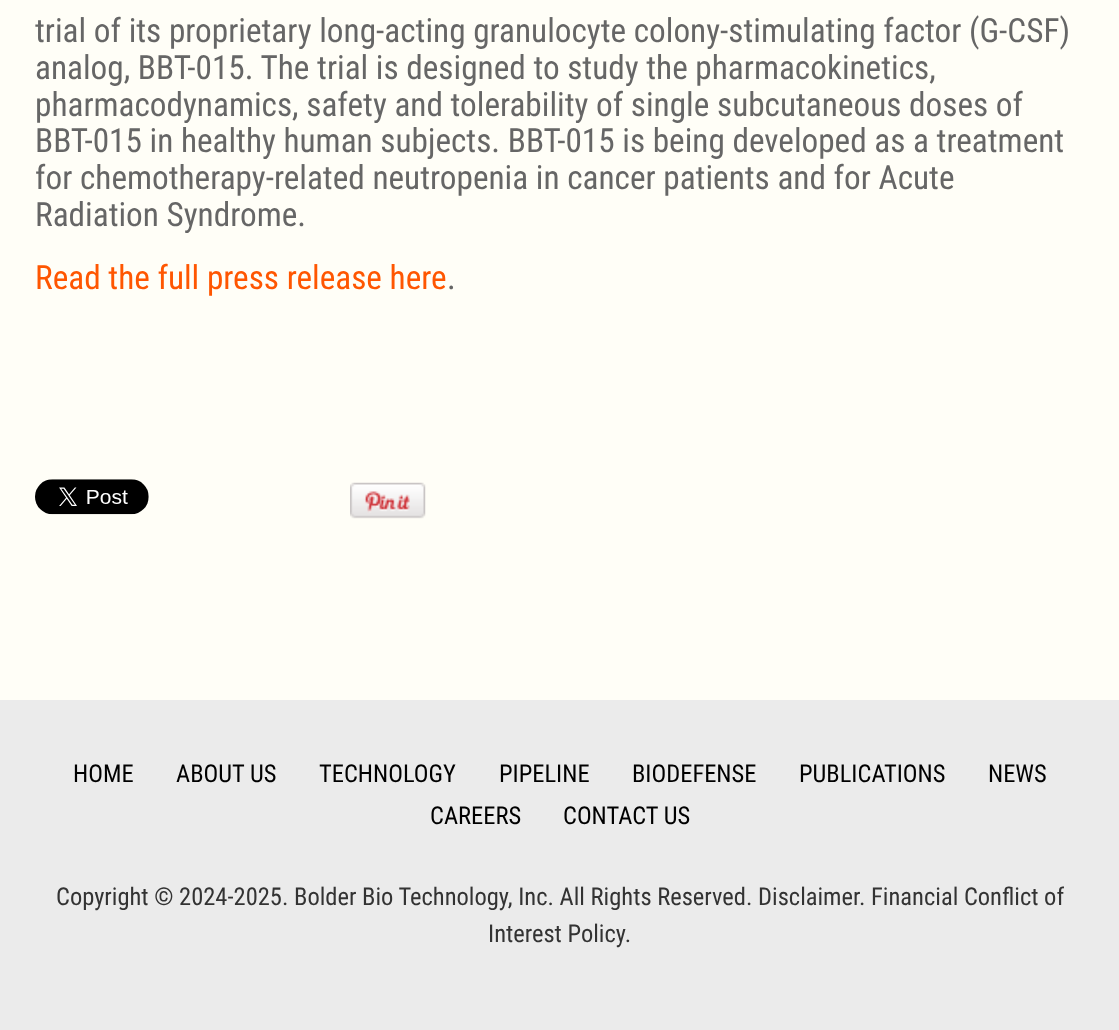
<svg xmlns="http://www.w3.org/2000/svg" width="1119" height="1030">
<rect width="100%" height="100%" fill="#fffef7"/>
<text x="35" y="42" style="font-family:Roboto Condensed;font-size:33.25px;fill:#666">trial of its proprietary long-acting granulocyte colony-stimulating factor (G-CSF)</text>
<text x="35" y="79" style="font-family:Roboto Condensed;font-size:33.25px;fill:#666">analog, BBT-015. The trial is designed to study the pharmacokinetics,</text>
<text x="35" y="116" style="font-family:Roboto Condensed;font-size:33.25px;fill:#666">pharmacodynamics, safety and tolerability of single subcutaneous doses of</text>
<text x="35" y="152" style="font-family:Roboto Condensed;font-size:33.25px;fill:#666">BBT-015 in healthy human subjects. BBT-015 is being developed as a treatment</text>
<text x="35" y="189" style="font-family:Roboto Condensed;font-size:33.25px;fill:#666">for chemotherapy-related neutropenia in cancer patients and for Acute</text>
<text x="35" y="226" style="font-family:Roboto Condensed;font-size:33.25px;fill:#666">Radiation Syndrome.</text>
<text x="35" y="289" style="font-family:Roboto Condensed;font-size:33.25px;fill:#ff5601">Read the full press release here</text>
<text x="447" y="289" style="font-family:Roboto Condensed;font-size:33.25px;fill:#666">.</text>
<image x="35" y="479" width="114" height="36" href="media/1.png"/>
<image x="350" y="482" width="76" height="37" href="media/2.png"/>
<rect y="700" width="1119" height="330" fill="#ebebeb"/>
<text x="73" y="782" style="font-family:Roboto Condensed;font-size:24.5px;fill:#000">HOME</text>
<text x="176" y="782" style="font-family:Roboto Condensed;font-size:24.5px;fill:#000">ABOUT US</text>
<text x="319" y="782" style="font-family:Roboto Condensed;font-size:24.5px;fill:#000">TECHNOLOGY</text>
<text x="499" y="782" style="font-family:Roboto Condensed;font-size:24.5px;fill:#000">PIPELINE</text>
<text x="632" y="782" style="font-family:Roboto Condensed;font-size:24.5px;fill:#000">BIODEFENSE</text>
<text x="799" y="782" style="font-family:Roboto Condensed;font-size:24.5px;fill:#000">PUBLICATIONS</text>
<text x="988" y="782" style="font-family:Roboto Condensed;font-size:24.5px;fill:#000">NEWS</text>
<text x="430" y="824" style="font-family:Roboto Condensed;font-size:24.5px;fill:#000">CAREERS</text>
<text x="563" y="824" style="font-family:Roboto Condensed;font-size:24.5px;fill:#000">CONTACT US</text>
<text x="56" y="905" style="font-family:Roboto Condensed;font-size:24.5px;fill:#333">Copyright © 2024-2025. Bolder Bio Technology, Inc. All Rights Reserved. Disclaimer</text>
<text x="859" y="905" style="font-family:Roboto Condensed;font-size:24.5px;fill:#333">. Financial Conflict of</text>
<text x="488" y="942" style="font-family:Roboto Condensed;font-size:24.5px;fill:#333">Interest Policy.</text>
</svg>
